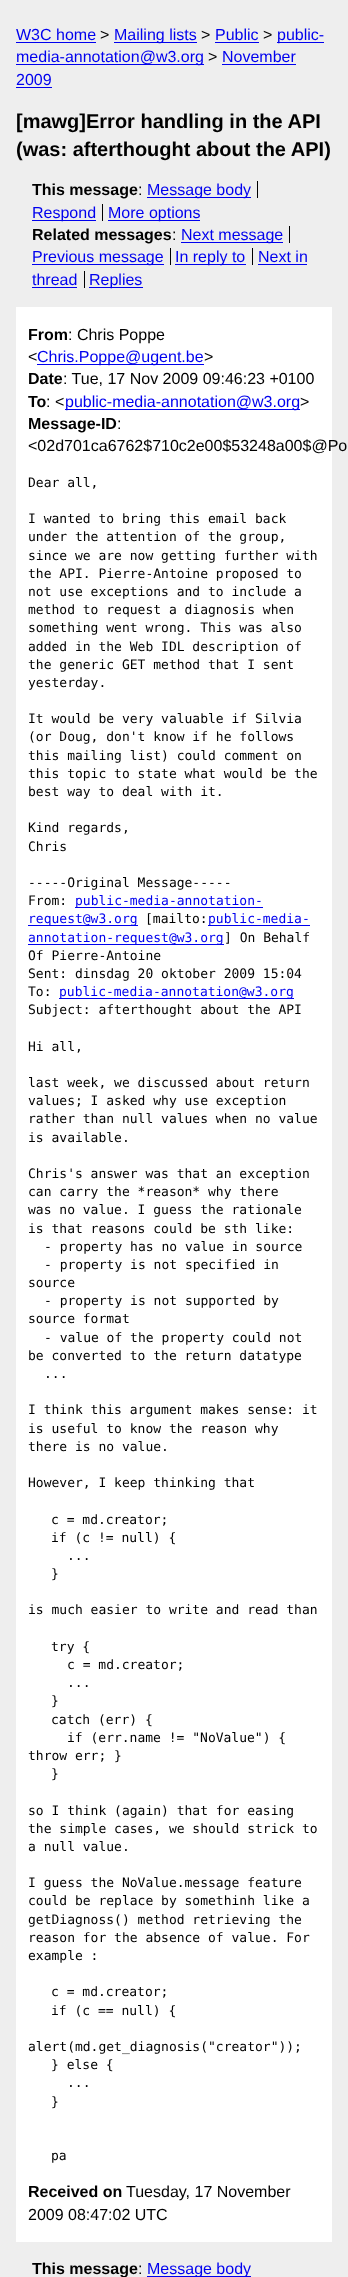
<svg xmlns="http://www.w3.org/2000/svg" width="348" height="2277">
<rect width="100%" height="100%" fill="#eee"/>
<text x="16" y="40" style="font-family:Liberation Sans;font-size:16px;fill:#00e">W3C home</text>
<rect x="16" y="42" width="80" height="1" fill="#00e"/>
<text x="100" y="40" style="font-family:Liberation Sans;font-size:16px;fill:#000">&gt;</text>
<rect x="114" y="42" width="83" height="1" fill="#00e"/>
<text x="114" y="40" style="font-family:Liberation Sans;font-size:16px;fill:#00e">Mailing lists</text>
<text x="201" y="40" style="font-family:Liberation Sans;font-size:16px;fill:#000">&gt;</text>
<text x="215" y="40" style="font-family:Liberation Sans;font-size:16px;fill:#00e">Public</text>
<rect x="215" y="42" width="44" height="1" fill="#00e"/>
<text x="263" y="40" style="font-family:Liberation Sans;font-size:16px;fill:#000">&gt;</text>
<rect x="277" y="42" width="47" height="1" fill="#00e"/>
<text x="277" y="40" style="font-family:Liberation Sans;font-size:16px;fill:#00e">public-</text>
<rect x="16" y="64" width="188" height="1" fill="#00e"/>
<text x="16" y="62" style="font-family:Liberation Sans;font-size:16px;fill:#00e">media-annotation@w3.org</text>
<text x="208" y="62" style="font-family:Liberation Sans;font-size:16px;fill:#000">&gt;</text>
<text x="222" y="62" style="font-family:Liberation Sans;font-size:16px;fill:#00e">November</text>
<rect x="222" y="64" width="74" height="1" fill="#00e"/>
<text x="16" y="85" style="font-family:Liberation Sans;font-size:16px;fill:#00e">2009</text>
<rect x="16" y="87" width="36" height="1" fill="#00e"/>
<text x="16" y="128" style="font-family:Liberation Sans;font-size:20px;font-weight:bold;fill:#000">[mawg]Error handling in the API</text>
<text x="16" y="156" style="font-family:Liberation Sans;font-size:20px;font-weight:bold;fill:#000">(was: afterthought about the API)</text>
<text x="32" y="195" style="font-family:Liberation Sans;font-size:16px;font-weight:bold;fill:#000">This message</text>
<text x="138" y="195" style="font-family:Liberation Sans;font-size:16px;fill:#000">:</text>
<rect x="147" y="197" width="104" height="1" fill="#00e"/>
<text x="147" y="195" style="font-family:Liberation Sans;font-size:16px;fill:#00e">Message body</text>
<rect x="257" y="181" width="1" height="17" fill="#000"/>
<rect x="32" y="220" width="64" height="1" fill="#00e"/>
<text x="32" y="218" style="font-family:Liberation Sans;font-size:16px;fill:#00e">Respond</text>
<rect x="102" y="204" width="1" height="17" fill="#000"/>
<rect x="108" y="220" width="92" height="1" fill="#00e"/>
<text x="108" y="218" style="font-family:Liberation Sans;font-size:16px;fill:#00e">More options</text>
<text x="32" y="240" style="font-family:Liberation Sans;font-size:16px;font-weight:bold;fill:#000">Related messages</text>
<text x="172" y="240" style="font-family:Liberation Sans;font-size:16px;fill:#000">:</text>
<rect x="181" y="242" width="102" height="1" fill="#00e"/>
<text x="181" y="240" style="font-family:Liberation Sans;font-size:16px;fill:#00e">Next message</text>
<rect x="289" y="226" width="1" height="17" fill="#000"/>
<rect x="32" y="264" width="132" height="1" fill="#00e"/>
<text x="32" y="262" style="font-family:Liberation Sans;font-size:16px;fill:#00e">Previous message</text>
<rect x="175" y="264" width="71" height="1" fill="#00e"/>
<text x="175" y="262" style="font-family:Liberation Sans;font-size:16px;fill:#00e">In reply to</text>
<rect x="170" y="248" width="1" height="17" fill="#000"/>
<text x="258" y="262" style="font-family:Liberation Sans;font-size:16px;fill:#00e">Next in</text>
<rect x="252" y="248" width="1" height="17" fill="#000"/>
<rect x="258" y="264" width="49" height="1" fill="#00e"/>
<text x="32" y="285" style="font-family:Liberation Sans;font-size:16px;fill:#00e">thread</text>
<rect x="84" y="271" width="1" height="17" fill="#000"/>
<rect x="32" y="287" width="45" height="1" fill="#00e"/>
<rect x="89" y="287" width="54" height="1" fill="#00e"/>
<text x="89" y="285" style="font-family:Liberation Sans;font-size:16px;fill:#00e">Replies</text>
<rect x="16" y="307" width="316" height="1935" fill="#fff"/>
<text x="28" y="340" style="font-family:Liberation Sans;font-size:16px;font-weight:bold;fill:#000">From</text>
<text x="68" y="340" style="font-family:Liberation Sans;font-size:16px;fill:#000">: Chris Poppe</text>
<text x="28" y="362" style="font-family:Liberation Sans;font-size:16px;fill:#000">&lt;</text>
<rect x="37" y="364" width="167" height="1" fill="#00e"/>
<text x="37" y="362" style="font-family:Liberation Sans;font-size:16px;fill:#00e">Chris.Poppe@ugent.be</text>
<text x="204" y="362" style="font-family:Liberation Sans;font-size:16px;fill:#000">&gt;</text>
<text x="28" y="384" style="font-family:Liberation Sans;font-size:16px;font-weight:bold;fill:#000">Date</text>
<text x="63" y="384" style="font-family:Liberation Sans;font-size:16px;fill:#000">: Tue, 17 Nov 2009 09:46:23 +0100</text>
<text x="28" y="407" style="font-family:Liberation Sans;font-size:16px;font-weight:bold;fill:#000">To</text>
<text x="46" y="407" style="font-family:Liberation Sans;font-size:16px;fill:#000">: &lt;</text>
<rect x="65" y="409" width="235" height="1" fill="#00e"/>
<text x="65" y="407" style="font-family:Liberation Sans;font-size:16px;fill:#00e">public-media-annotation@w3.org</text>
<text x="300" y="407" style="font-family:Liberation Sans;font-size:16px;fill:#000">&gt;</text>
<text x="28" y="429" style="font-family:Liberation Sans;font-size:16px;font-weight:bold;fill:#000">Message-ID</text>
<text x="117" y="429" style="font-family:Liberation Sans;font-size:16px;fill:#000">:</text>
<text x="28" y="451" style="font-family:Liberation Sans;font-size:16px;fill:#000">&lt;02d701ca6762$710c2e00$53248a00$@Po</text>
<text x="28" y="487" style="font-family:DejaVu Sans Mono;font-size:13px;fill:#000">Dear all,</text>
<text x="28" y="523" style="font-family:DejaVu Sans Mono;font-size:13px;fill:#000">I wanted to bring this email back</text>
<text x="28" y="541" style="font-family:DejaVu Sans Mono;font-size:13px;fill:#000">under the attention of the group,</text>
<text x="28" y="560" style="font-family:DejaVu Sans Mono;font-size:13px;fill:#000">since we are now getting further with</text>
<text x="28" y="578" style="font-family:DejaVu Sans Mono;font-size:13px;fill:#000">the API. Pierre-Antoine proposed to</text>
<text x="28" y="596" style="font-family:DejaVu Sans Mono;font-size:13px;fill:#000">not use exceptions and to include a</text>
<text x="28" y="614" style="font-family:DejaVu Sans Mono;font-size:13px;fill:#000">method to request a diagnosis when</text>
<text x="28" y="632" style="font-family:DejaVu Sans Mono;font-size:13px;fill:#000">something went wrong. This was also</text>
<text x="28" y="651" style="font-family:DejaVu Sans Mono;font-size:13px;fill:#000">added in the Web IDL description of</text>
<text x="28" y="669" style="font-family:DejaVu Sans Mono;font-size:13px;fill:#000">the generic GET method that I sent</text>
<text x="28" y="687" style="font-family:DejaVu Sans Mono;font-size:13px;fill:#000">yesterday.</text>
<text x="28" y="723" style="font-family:DejaVu Sans Mono;font-size:13px;fill:#000">It would be very valuable if Silvia</text>
<text x="28" y="741" style="font-family:DejaVu Sans Mono;font-size:13px;fill:#000">(or Doug, don't know if he follows</text>
<text x="28" y="760" style="font-family:DejaVu Sans Mono;font-size:13px;fill:#000">this mailing list) could comment on</text>
<text x="28" y="778" style="font-family:DejaVu Sans Mono;font-size:13px;fill:#000">this topic to state what would be the</text>
<text x="28" y="796" style="font-family:DejaVu Sans Mono;font-size:13px;fill:#000">best way to deal with it.</text>
<text x="28" y="832" style="font-family:DejaVu Sans Mono;font-size:13px;fill:#000">Kind regards,</text>
<text x="28" y="851" style="font-family:DejaVu Sans Mono;font-size:13px;fill:#000">Chris</text>
<text x="28" y="887" style="font-family:DejaVu Sans Mono;font-size:13px;fill:#000">-----Original Message-----</text>
<text x="28" y="905" style="font-family:DejaVu Sans Mono;font-size:13px;fill:#000">From:</text>
<rect x="75" y="907" width="188" height="1" fill="#00e"/>
<text x="75" y="905" style="font-family:DejaVu Sans Mono;font-size:13px;fill:#00e">public-media-annotation-</text>
<rect x="28" y="925" width="110" height="1" fill="#00e"/>
<text x="28" y="923" style="font-family:DejaVu Sans Mono;font-size:13px;fill:#00e">request@w3.org</text>
<text x="145" y="923" style="font-family:DejaVu Sans Mono;font-size:13px;fill:#000">[mailto:</text>
<rect x="208" y="925" width="102" height="1" fill="#00e"/>
<text x="208" y="923" style="font-family:DejaVu Sans Mono;font-size:13px;fill:#00e">public-media-</text>
<rect x="28" y="944" width="196" height="1" fill="#00e"/>
<text x="28" y="942" style="font-family:DejaVu Sans Mono;font-size:13px;fill:#00e">annotation-request@w3.org</text>
<text x="224" y="942" style="font-family:DejaVu Sans Mono;font-size:13px;fill:#000">] On Behalf</text>
<text x="28" y="960" style="font-family:DejaVu Sans Mono;font-size:13px;fill:#000">Of Pierre-Antoine</text>
<text x="28" y="978" style="font-family:DejaVu Sans Mono;font-size:13px;fill:#000">Sent: dinsdag 20 oktober 2009 15:04</text>
<text x="28" y="996" style="font-family:DejaVu Sans Mono;font-size:13px;fill:#000">To:</text>
<rect x="59" y="998" width="235" height="1" fill="#00e"/>
<text x="59" y="996" style="font-family:DejaVu Sans Mono;font-size:13px;fill:#00e">public-media-annotation@w3.org</text>
<text x="28" y="1014" style="font-family:DejaVu Sans Mono;font-size:13px;fill:#000">Subject: afterthought about the API</text>
<text x="28" y="1051" style="font-family:DejaVu Sans Mono;font-size:13px;fill:#000">Hi all,</text>
<text x="28" y="1087" style="font-family:DejaVu Sans Mono;font-size:13px;fill:#000">last week, we discussed about return</text>
<text x="28" y="1105" style="font-family:DejaVu Sans Mono;font-size:13px;fill:#000">values; I asked why use exception</text>
<text x="28" y="1123" style="font-family:DejaVu Sans Mono;font-size:13px;fill:#000">rather than null values when no value</text>
<text x="28" y="1142" style="font-family:DejaVu Sans Mono;font-size:13px;fill:#000">is available.</text>
<text x="28" y="1178" style="font-family:DejaVu Sans Mono;font-size:13px;fill:#000">Chris's answer was that an exception</text>
<text x="28" y="1196" style="font-family:DejaVu Sans Mono;font-size:13px;fill:#000">can carry the *reason* why there</text>
<text x="28" y="1214" style="font-family:DejaVu Sans Mono;font-size:13px;fill:#000">was no value. I guess the rationale</text>
<text x="28" y="1233" style="font-family:DejaVu Sans Mono;font-size:13px;fill:#000">is that reasons could be sth like:</text>
<text x="44" y="1251" style="font-family:DejaVu Sans Mono;font-size:13px;fill:#000">- property has no value in source</text>
<text x="44" y="1269" style="font-family:DejaVu Sans Mono;font-size:13px;fill:#000">- property is not specified in</text>
<text x="28" y="1287" style="font-family:DejaVu Sans Mono;font-size:13px;fill:#000">source</text>
<text x="44" y="1305" style="font-family:DejaVu Sans Mono;font-size:13px;fill:#000">- property is not supported by</text>
<text x="28" y="1323" style="font-family:DejaVu Sans Mono;font-size:13px;fill:#000">source format</text>
<text x="44" y="1342" style="font-family:DejaVu Sans Mono;font-size:13px;fill:#000">- value of the property could not</text>
<text x="28" y="1360" style="font-family:DejaVu Sans Mono;font-size:13px;fill:#000">be converted to the return datatype</text>
<text x="44" y="1378" style="font-family:DejaVu Sans Mono;font-size:13px;fill:#000">...</text>
<text x="28" y="1414" style="font-family:DejaVu Sans Mono;font-size:13px;fill:#000">I think this argument makes sense: it</text>
<text x="28" y="1433" style="font-family:DejaVu Sans Mono;font-size:13px;fill:#000">is useful to know the reason why</text>
<text x="28" y="1451" style="font-family:DejaVu Sans Mono;font-size:13px;fill:#000">there is no value.</text>
<text x="28" y="1487" style="font-family:DejaVu Sans Mono;font-size:13px;fill:#000">However, I keep thinking that</text>
<text x="51" y="1524" style="font-family:DejaVu Sans Mono;font-size:13px;fill:#000">c = md.creator;</text>
<text x="51" y="1542" style="font-family:DejaVu Sans Mono;font-size:13px;fill:#000">if (c != null) {</text>
<text x="67" y="1560" style="font-family:DejaVu Sans Mono;font-size:13px;fill:#000">...</text>
<text x="51" y="1578" style="font-family:DejaVu Sans Mono;font-size:13px;fill:#000">}</text>
<text x="28" y="1614" style="font-family:DejaVu Sans Mono;font-size:13px;fill:#000">is much easier to write and read than</text>
<text x="51" y="1651" style="font-family:DejaVu Sans Mono;font-size:13px;fill:#000">try {</text>
<text x="67" y="1669" style="font-family:DejaVu Sans Mono;font-size:13px;fill:#000">c = md.creator;</text>
<text x="67" y="1687" style="font-family:DejaVu Sans Mono;font-size:13px;fill:#000">...</text>
<text x="51" y="1705" style="font-family:DejaVu Sans Mono;font-size:13px;fill:#000">}</text>
<text x="51" y="1724" style="font-family:DejaVu Sans Mono;font-size:13px;fill:#000">catch (err) {</text>
<text x="67" y="1742" style="font-family:DejaVu Sans Mono;font-size:13px;fill:#000">if (err.name != "NoValue") {</text>
<text x="28" y="1760" style="font-family:DejaVu Sans Mono;font-size:13px;fill:#000">throw err; }</text>
<text x="51" y="1778" style="font-family:DejaVu Sans Mono;font-size:13px;fill:#000">}</text>
<text x="28" y="1815" style="font-family:DejaVu Sans Mono;font-size:13px;fill:#000">so I think (again) that for easing</text>
<text x="28" y="1833" style="font-family:DejaVu Sans Mono;font-size:13px;fill:#000">the simple cases, we should strick to</text>
<text x="28" y="1851" style="font-family:DejaVu Sans Mono;font-size:13px;fill:#000">a null value.</text>
<text x="28" y="1887" style="font-family:DejaVu Sans Mono;font-size:13px;fill:#000">I guess the NoValue.message feature</text>
<text x="28" y="1905" style="font-family:DejaVu Sans Mono;font-size:13px;fill:#000">could be replace by somethinh like a</text>
<text x="28" y="1924" style="font-family:DejaVu Sans Mono;font-size:13px;fill:#000">getDiagnoss() method retrieving the</text>
<text x="28" y="1942" style="font-family:DejaVu Sans Mono;font-size:13px;fill:#000">reason for the absence of value. For</text>
<text x="28" y="1960" style="font-family:DejaVu Sans Mono;font-size:13px;fill:#000">example :</text>
<text x="51" y="1996" style="font-family:DejaVu Sans Mono;font-size:13px;fill:#000">c = md.creator;</text>
<text x="51" y="2015" style="font-family:DejaVu Sans Mono;font-size:13px;fill:#000">if (c == null) {</text>
<text x="28" y="2051" style="font-family:DejaVu Sans Mono;font-size:13px;fill:#000">alert(md.get_diagnosis("creator"));</text>
<text x="51" y="2069" style="font-family:DejaVu Sans Mono;font-size:13px;fill:#000">} else {</text>
<text x="67" y="2087" style="font-family:DejaVu Sans Mono;font-size:13px;fill:#000">...</text>
<text x="51" y="2106" style="font-family:DejaVu Sans Mono;font-size:13px;fill:#000">}</text>
<text x="51" y="2160" style="font-family:DejaVu Sans Mono;font-size:13px;fill:#000">pa</text>
<text x="28" y="2197" style="font-family:Liberation Sans;font-size:16px;font-weight:bold;fill:#000">Received on</text>
<text x="126" y="2197" style="font-family:Liberation Sans;font-size:16px;fill:#000">Tuesday, 17 November</text>
<text x="28" y="2220" style="font-family:Liberation Sans;font-size:16px;fill:#000">2009 08:47:02 UTC</text>
<text x="32" y="2274" style="font-family:Liberation Sans;font-size:16px;font-weight:bold;fill:#000">This message</text>
<text x="138" y="2274" style="font-family:Liberation Sans;font-size:16px;fill:#000">:</text>
<rect x="147" y="2276" width="104" height="1" fill="#00e"/>
<text x="147" y="2274" style="font-family:Liberation Sans;font-size:16px;fill:#00e">Message body</text>
</svg>
